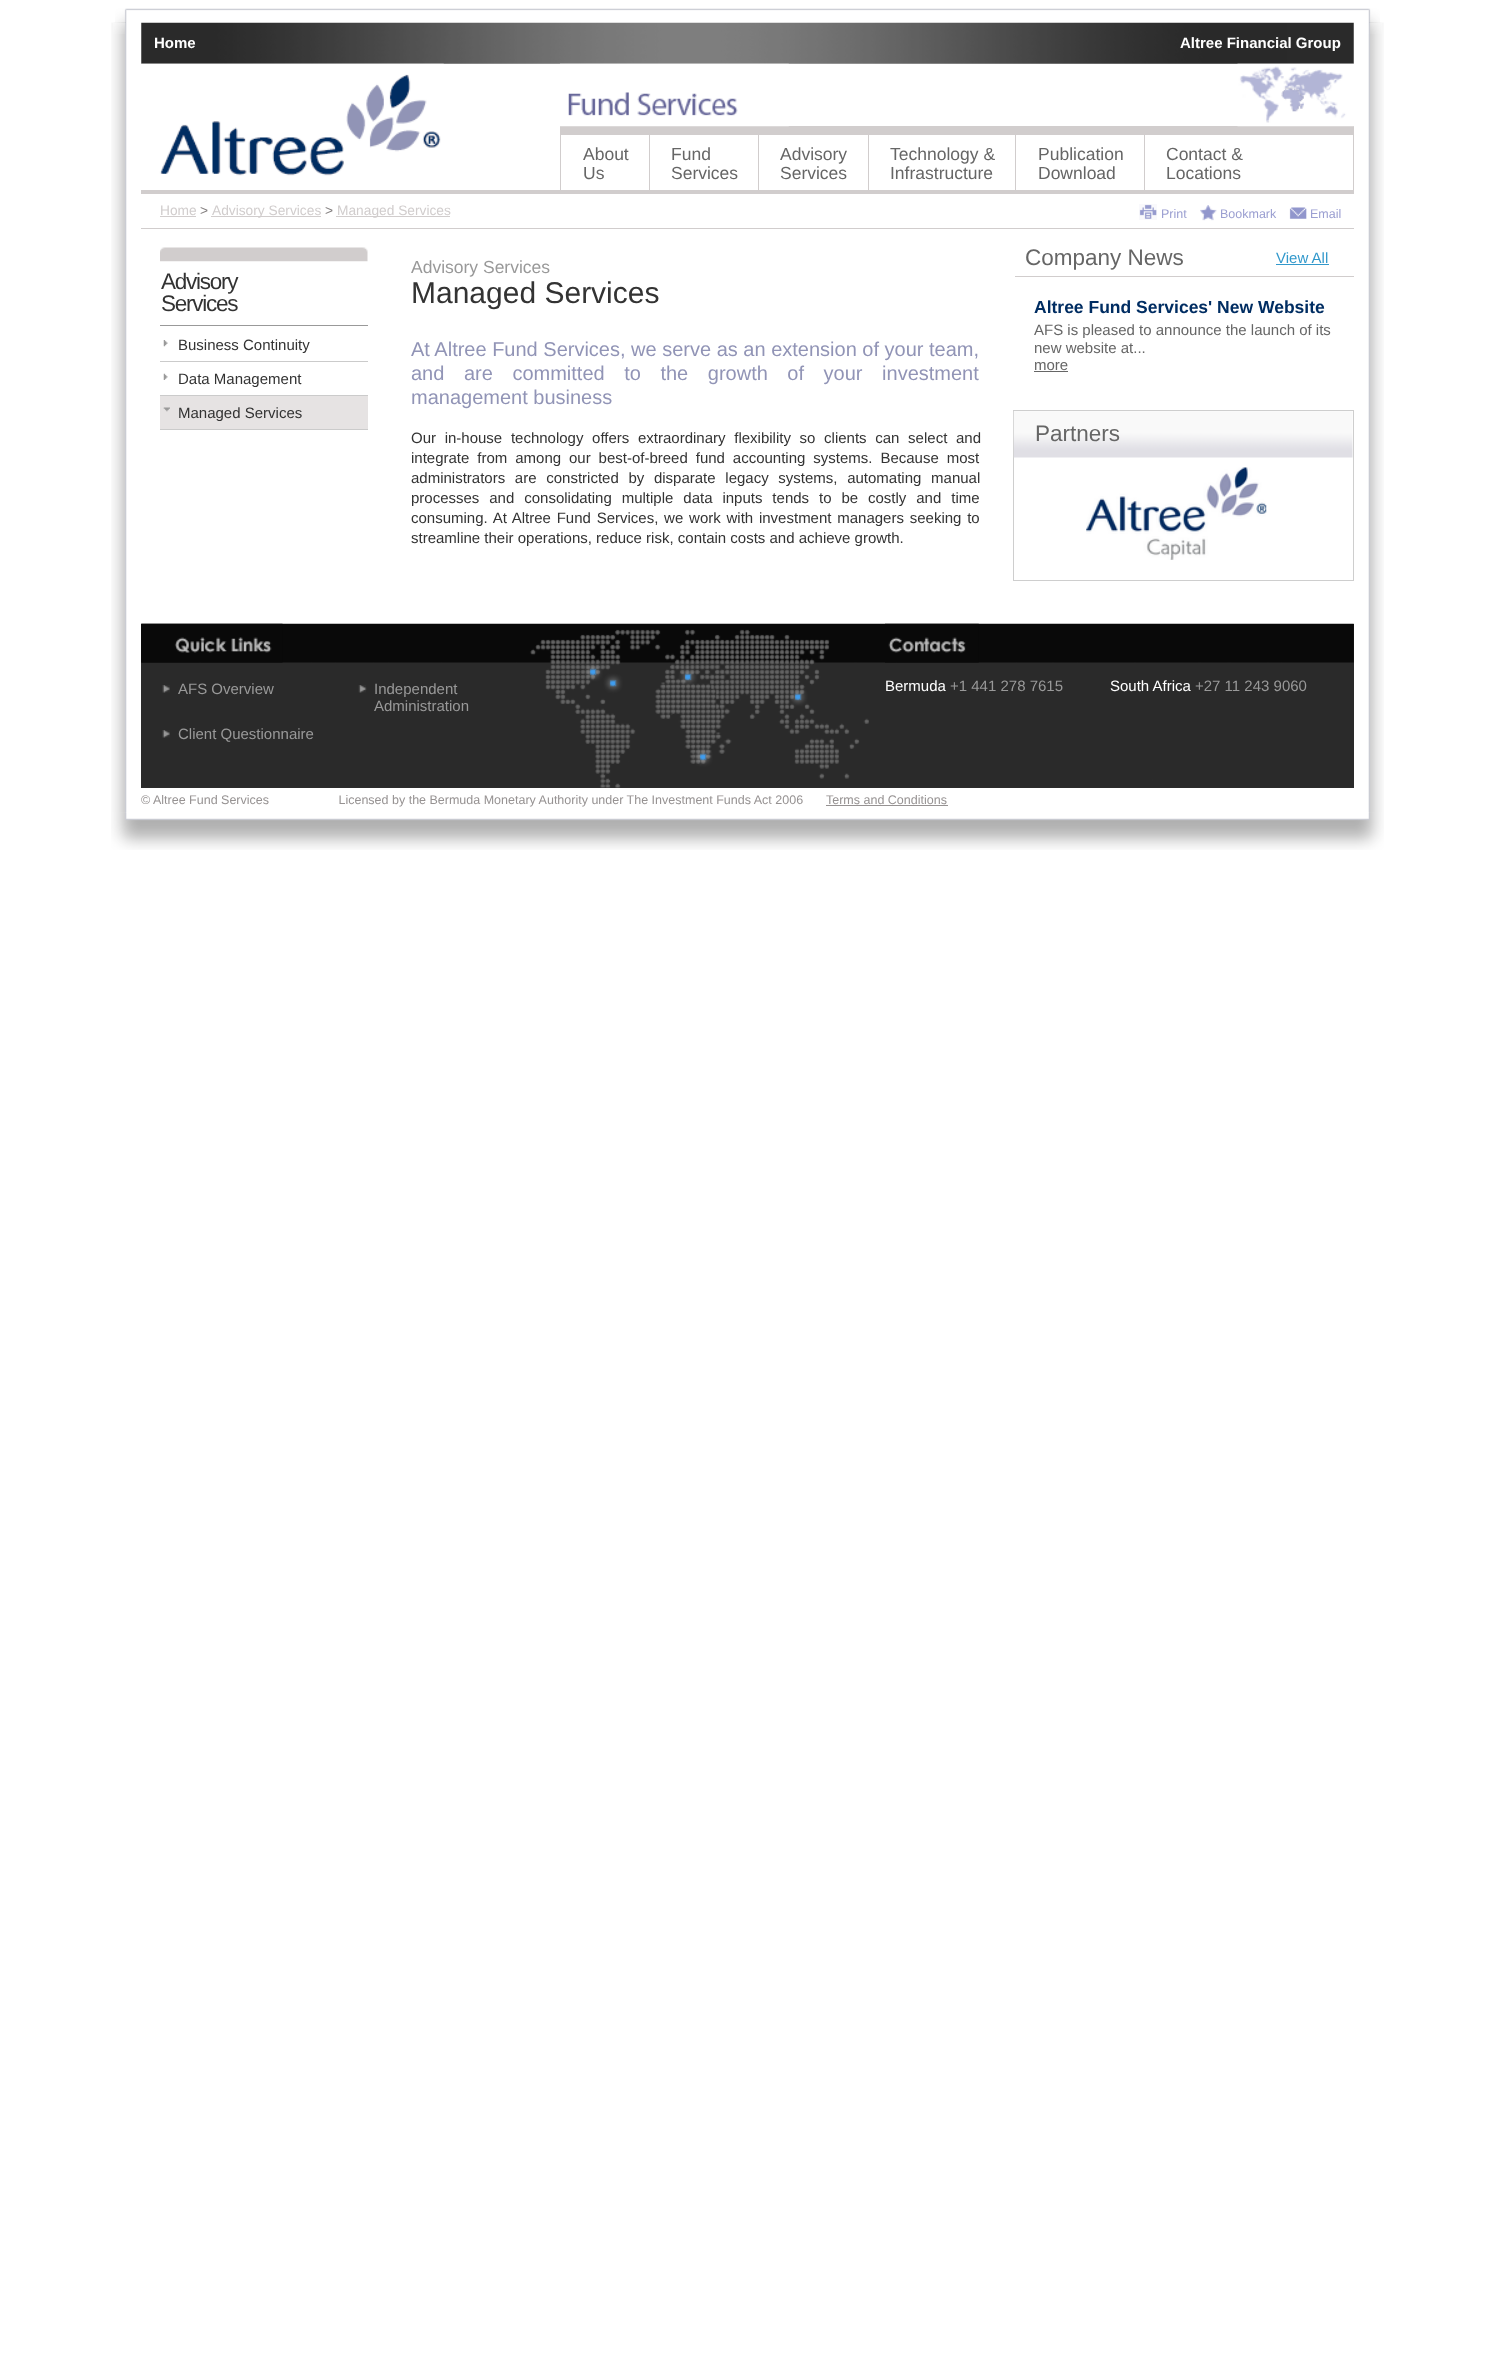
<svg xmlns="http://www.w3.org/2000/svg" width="1494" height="2368">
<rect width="100%" height="100%" fill="#fff"/>
<image x="111" y="22" width="1273" height="791" href="media/2.png"/>
<image x="113" y="22" width="1269" height="12" href="media/3.png"/>
<image x="141" y="22" width="1213" height="42" href="media/4.png"/>
<image x="115" y="8" width="1265" height="15" href="media/1.png"/>
<text x="154" y="48" style="font-family:Liberation Sans;font-size:15px;font-weight:bold;fill:#fff">Home</text>
<text x="1180" y="48" style="font-family:Liberation Sans;font-size:15px;font-weight:bold;fill:#fff">Altree Financial Group</text>
<rect x="141" y="190" width="1213" height="4" fill="#d1cdcd"/>
<image x="141" y="63" width="303" height="113" href="media/5.png"/>
<rect x="561" y="126" width="792" height="9" fill="#d1cdcd"/>
<rect x="560" y="126" width="1" height="65" fill="#d1cdcd"/>
<image x="560" y="63" width="229" height="64" href="media/6.png"/>
<rect x="1353" y="126" width="1" height="65" fill="#d1cdcd"/>
<image x="1237" y="63" width="117" height="64" href="media/7.png"/>
<rect x="649" y="135" width="1" height="56" fill="#d1cdcd"/>
<text x="583" y="160" style="font-family:Liberation Sans;font-size:17.5px;fill:#666">About</text>
<text x="583" y="179" style="font-family:Liberation Sans;font-size:17.5px;fill:#666">Us</text>
<rect x="758" y="135" width="1" height="56" fill="#d1cdcd"/>
<text x="671" y="160" style="font-family:Liberation Sans;font-size:17.5px;fill:#666">Fund</text>
<text x="671" y="179" style="font-family:Liberation Sans;font-size:17.5px;fill:#666">Services</text>
<rect x="868" y="135" width="1" height="56" fill="#d1cdcd"/>
<text x="780" y="160" style="font-family:Liberation Sans;font-size:17.5px;fill:#666">Advisory</text>
<text x="780" y="179" style="font-family:Liberation Sans;font-size:17.5px;fill:#666">Services</text>
<rect x="1015" y="135" width="1" height="56" fill="#d1cdcd"/>
<text x="890" y="160" style="font-family:Liberation Sans;font-size:17.5px;fill:#666">Technology &amp;</text>
<text x="890" y="179" style="font-family:Liberation Sans;font-size:17.5px;fill:#666">Infrastructure</text>
<rect x="1144" y="135" width="1" height="56" fill="#d1cdcd"/>
<text x="1038" y="160" style="font-family:Liberation Sans;font-size:17.5px;fill:#666">Publication</text>
<text x="1038" y="179" style="font-family:Liberation Sans;font-size:17.5px;fill:#666">Download</text>
<text x="1166" y="160" style="font-family:Liberation Sans;font-size:17.5px;fill:#666">Contact &amp;</text>
<text x="1166" y="179" style="font-family:Liberation Sans;font-size:17.5px;fill:#666">Locations</text>
<rect x="141" y="228" width="1213" height="1" fill="#d1cdcd"/>
<text x="160" y="215" style="font-family:Liberation Sans;font-size:13.75px;fill:#d1cdcd">Home</text>
<rect x="160" y="216" width="36" height="1" fill="#d1cdcd"/>
<text x="200" y="215" style="font-family:Liberation Sans;font-size:13.75px;fill:#837f7f">&gt;</text>
<rect x="211" y="216" width="110" height="1" fill="#d1cdcd"/>
<text x="212" y="215" style="font-family:Liberation Sans;font-size:13.75px;fill:#d1cdcd">Advisory Services</text>
<text x="325" y="215" style="font-family:Liberation Sans;font-size:13.75px;fill:#837f7f">&gt;</text>
<rect x="336" y="216" width="114" height="1" fill="#d1cdcd"/>
<text x="337" y="215" style="font-family:Liberation Sans;font-size:13.75px;fill:#d1cdcd">Managed Services</text>
<image x="1139" y="204" width="18" height="16" href="media/8.png"/>
<text x="1161" y="218" style="font-family:Liberation Sans;font-size:12.5px;fill:#9b9fd1">Print</text>
<image x="1200" y="205" width="17" height="16" href="media/9.png"/>
<text x="1220" y="218" style="font-family:Liberation Sans;font-size:12.5px;fill:#9b9fd1">Bookmark</text>
<image x="1289" y="207" width="18" height="12" href="media/10.png"/>
<text x="1310" y="218" style="font-family:Liberation Sans;font-size:12.5px;fill:#9b9fd1">Email</text>
<image x="160" y="247" width="208" height="15" href="media/11.png"/>
<rect x="160" y="325" width="208" height="1" fill="#999"/>
<text x="161" y="289" style="font-family:Liberation Sans;font-size:22.5px;letter-spacing:-1.25px;fill:#333">Advisory</text>
<text x="161" y="311" style="font-family:Liberation Sans;font-size:22.5px;letter-spacing:-1.25px;fill:#333">Services</text>
<image x="163" y="340" width="5" height="7" href="media/12.png"/>
<rect x="160" y="361" width="208" height="1" fill="#cbcbcb"/>
<text x="178" y="350" style="font-family:Liberation Sans;font-size:15px;fill:#333">Business Continuity</text>
<image x="163" y="373" width="5" height="7" href="media/13.png"/>
<rect x="160" y="395" width="208" height="1" fill="#cbcbcb"/>
<text x="178" y="384" style="font-family:Liberation Sans;font-size:15px;fill:#333">Data Management</text>
<rect x="160" y="396" width="208" height="33" fill="#e6e3e3"/>
<image x="163" y="407" width="7" height="5" href="media/14.png"/>
<rect x="160" y="429" width="208" height="1" fill="#cbcbcb"/>
<text x="178" y="418" style="font-family:Liberation Sans;font-size:15px;fill:#333">Managed Services</text>
<text x="411" y="273" style="font-family:Liberation Sans;font-size:17.5px;fill:#999">Advisory Services</text>
<text x="411" y="303" style="font-family:Liberation Sans;font-size:30px;fill:#333">Managed Services</text>
<text x="411" y="356" style="font-family:Liberation Sans;font-size:20px;fill:#9194b6">At Altree Fund Services, we serve as an extension of your team,</text>
<text x="411" y="380" word-spacing="14" style="font-family:Liberation Sans;font-size:20px;fill:#9194b6">and are committed to the growth of your investment</text>
<text x="411" y="404" style="font-family:Liberation Sans;font-size:20px;fill:#9194b6">management business</text>
<text x="411" y="443" word-spacing="4.5" style="font-family:Liberation Sans;font-size:15px;fill:#333">Our in-house technology offers extraordinary flexibility so clients can select and</text>
<text x="411" y="463" word-spacing="3.75" style="font-family:Liberation Sans;font-size:15px;fill:#333">integrate from among our best-of-breed fund accounting systems. Because most</text>
<text x="411" y="483" word-spacing="5.5" style="font-family:Liberation Sans;font-size:15px;fill:#333">administrators are constricted by disparate legacy systems, automating manual</text>
<text x="411" y="503" word-spacing="5.75" style="font-family:Liberation Sans;font-size:15px;fill:#333">processes and consolidating multiple data inputs tends to be costly and time</text>
<text x="411" y="523" word-spacing="1.6" style="font-family:Liberation Sans;font-size:15px;fill:#333">consuming. At Altree Fund Services, we work with investment managers seeking to</text>
<text x="411" y="543" style="font-family:Liberation Sans;font-size:15px;fill:#333">streamline their operations, reduce risk, contain costs and achieve growth.</text>
<text x="1025" y="265" style="font-family:Liberation Sans;font-size:22.5px;fill:#666">Company News</text>
<text x="1276" y="263" style="font-family:Liberation Sans;font-size:15px;fill:#39c">View All</text>
<rect x="1276" y="264" width="53" height="1" fill="#39c"/>
<rect x="1015" y="276" width="339" height="1" fill="#d1cdcd"/>
<text x="1034" y="313" style="font-family:Liberation Sans;font-size:17.5px;font-weight:bold;fill:#002d62">Altree Fund Services' New Website</text>
<text x="1034" y="335" style="font-family:Liberation Sans;font-size:15px;fill:#666">AFS is pleased to announce the launch of its</text>
<text x="1034" y="353" style="font-family:Liberation Sans;font-size:15px;fill:#666">new website at...</text>
<text x="1034" y="370" style="font-family:Liberation Sans;font-size:15px;fill:#666">more</text>
<rect x="1034" y="371" width="34" height="1" fill="#666"/>
<rect x="1013.5" y="410.5" width="340" height="170" fill="none" stroke="#cecece"/>
<image x="1013" y="411" width="340" height="47" href="media/15.png"/>
<text x="1035" y="441" style="font-family:Liberation Sans;font-size:22.5px;fill:#666">Partners</text>
<image x="1086" y="467" width="181" height="93" href="media/16.png"/>
<rect x="141" y="624" width="1213" height="164" fill="#2f2f2f"/>
<image x="141" y="623" width="1213" height="165" href="media/17.png"/>
<image x="141" y="623" width="142" height="40" href="media/18.png"/>
<image x="162" y="685" width="8" height="8" href="media/19.png"/>
<text x="178" y="694" style="font-family:Liberation Sans;font-size:15px;fill:#999">AFS Overview</text>
<image x="358" y="685" width="9" height="8" href="media/20.png"/>
<text x="374" y="694" style="font-family:Liberation Sans;font-size:15px;fill:#999">Independent</text>
<text x="374" y="711" style="font-family:Liberation Sans;font-size:15px;fill:#999">Administration</text>
<image x="162" y="730" width="8" height="8" href="media/19.png"/>
<text x="178" y="739" style="font-family:Liberation Sans;font-size:15px;fill:#999">Client Questionnaire</text>
<image x="885" y="623" width="94" height="40" href="media/21.png"/>
<text x="885" y="691" style="font-family:Liberation Sans;font-size:15px;fill:#fff">Bermuda</text>
<text x="950" y="691" style="font-family:Liberation Sans;font-size:15px;fill:#999">+1 441 278 7615</text>
<text x="1110" y="691" style="font-family:Liberation Sans;font-size:15px;fill:#fff">South Africa</text>
<text x="1195" y="691" style="font-family:Liberation Sans;font-size:15px;fill:#999">+27 11 243 9060</text>
<text x="141" y="804" style="font-family:Liberation Sans;font-size:12.5px;fill:#969292" xml:space="preserve">© Altree Fund Services                    Licensed by the Bermuda Monetary Authority under The Investment Funds Act 2006</text>
<text x="826" y="804" style="font-family:Liberation Sans;font-size:12.5px;fill:#969292">Terms and Conditions</text>
<rect x="826" y="805" width="122" height="1" fill="#969292"/>
<image x="111" y="812" width="1273" height="38" href="media/22.png"/>
</svg>
